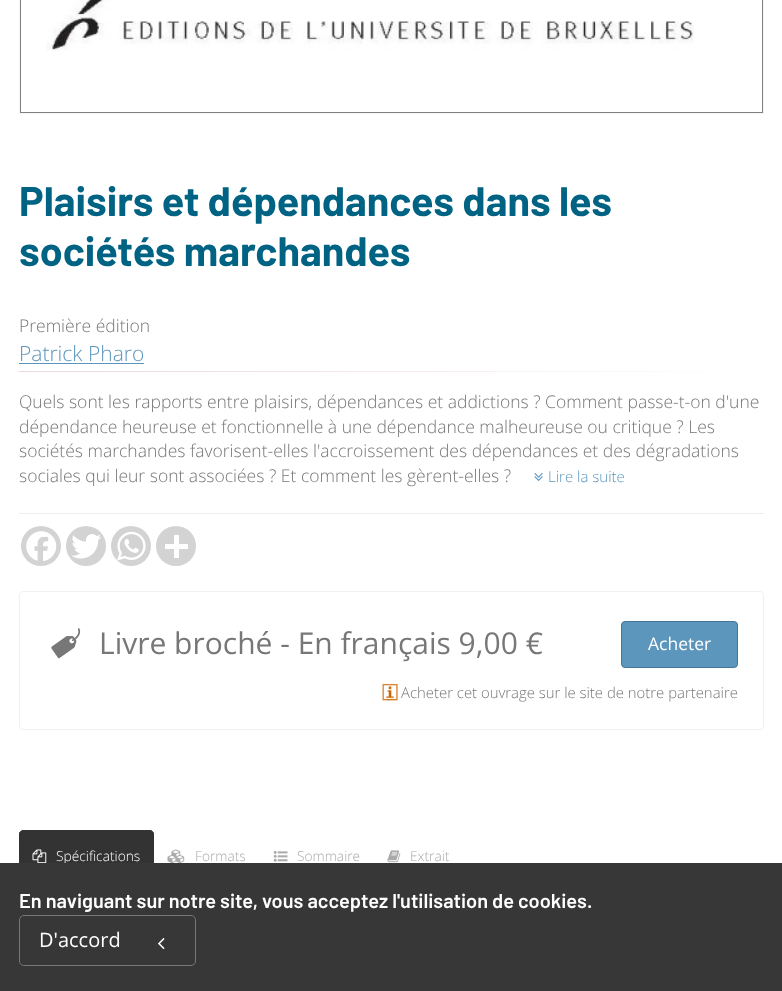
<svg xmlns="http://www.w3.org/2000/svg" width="782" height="991">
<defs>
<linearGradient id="g1" gradientUnits="userSpaceOnUse" x1="19" y1="372" x2="764" y2="372"><stop offset="0" stop-color="#ecd7de"/><stop offset="0.35" stop-color="#f2e4e9"/><stop offset="0.7" stop-color="#faf4f6"/><stop offset="1" stop-color="#fff"/></linearGradient>
</defs>
<rect width="100%" height="100%" fill="#fff"/>
<rect x="19.5" y="-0.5" width="744" height="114" fill="none" stroke="#f5f5f5"/>
<rect x="20.5" y="-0.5" width="742" height="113" fill="none" stroke="#808080"/>
<image x="46" y="0" width="648" height="51" href="media/1.png"/>
<text x="19" y="216" style="font-family:Barlow;font-size:41.25px;font-weight:bold;fill:#006383">Plaisirs et dépendances dans les</text>
<text x="19" y="266" style="font-family:Barlow;font-size:41.25px;font-weight:bold;fill:#006383">sociétés marchandes</text>
<text x="19" y="332" style="font-family:Open Sans;font-size:17.5px;font-weight:300;fill:#777">Première édition</text>
<text x="19" y="361" style="font-family:Open Sans;font-size:21px;font-weight:300;fill:#5c96bd">Patrick Pharo</text>
<rect x="19" y="363" width="125" height="1" fill="#5c96bd"/>
<rect x="19" y="371" width="694" height="1" fill="url(#g1)"/>
<text x="19" y="408" style="font-family:Open Sans;font-size:17.5px;font-weight:300;fill:#777">Quels sont les rapports entre plaisirs, dépendances et addictions ? Comment passe-t-on d'une</text>
<text x="19" y="433" style="font-family:Open Sans;font-size:17.5px;font-weight:300;fill:#777">dépendance heureuse et fonctionnelle à une dépendance malheureuse ou critique ? Les</text>
<text x="19" y="457" style="font-family:Open Sans;font-size:17.5px;font-weight:300;fill:#777">sociétés marchandes favorisent-elles l'accroissement des dépendances et des dégradations</text>
<text x="19" y="482" style="font-family:Open Sans;font-size:17.5px;font-weight:300;fill:#777">sociales qui leur sont associées ? Et comment les gèrent-elles ?</text>
<image x="534" y="473" width="9" height="8" href="media/2.png"/>
<text x="548" y="482" style="font-family:Open Sans;font-size:15px;font-weight:300;fill:#5c96bd">Lire la suite</text>
<rect x="19" y="513" width="745" height="1" fill="#eee"/>
<circle cx="41" cy="546" r="20" fill="#d3d3d3"/>
<image x="26" y="531" width="31" height="30" href="media/3.png"/>
<circle cx="86" cy="546" r="20" fill="#d3d3d3"/>
<image x="71" y="534" width="30" height="25" href="media/4.png"/>
<circle cx="131" cy="546" r="20" fill="#d3d3d3"/>
<image x="117" y="531" width="29" height="30" href="media/5.png"/>
<circle cx="176" cy="546" r="20" fill="#d3d3d3"/>
<rect x="174" y="535" width="5" height="23" fill="#fff"/>
<rect x="165" y="544" width="23" height="5" fill="#fff"/>
<rect x="19.5" y="591.5" width="744" height="138" rx="3.5" fill="none" stroke="#f1f1f1"/>
<image x="51" y="628" width="30" height="31" href="media/6.png"/>
<text x="99" y="654" style="font-family:Open Sans;font-size:30px;fill:#777">Livre broché - En français 9,00 €</text>
<rect x="621.5" y="621.5" width="116" height="46" rx="3.5" fill="#5c96bd" stroke="#467697"/>
<text x="648" y="650" style="font-family:Open Sans;font-size:17.5px;fill:#fff">Acheter</text>
<image x="382" y="683" width="16" height="18" href="media/7.png"/>
<text x="401" y="698" style="font-family:Open Sans;font-size:14.9px;font-weight:300;fill:#777">Acheter cet ouvrage sur le site de notre partenaire</text>
<path d="M24 830h125c3 0 5 2 5 5v48h-135v-48c0-3 2-5 5-5z" fill="#333"/>
<path d="M24 830c-2 0-3 1-4 2h1l3-1h125c1 0 2 1 2 1l1-1c0-1-2-1-3-1z" fill="#333"/>
<path d="M154 882l-2-1v-46l-1-3l1-1l2 2z" fill="#333"/>
<path d="M20 832c-1 0-1 2-1 3v47l1-1v-46c0-1 0-2 1-3z" fill="#333"/>
<image x="32" y="849" width="15" height="14" href="media/8.png"/>
<text x="56" y="861" style="font-family:Open Sans;font-size:13.75px;font-weight:300;fill:#fff">Spécifications</text>
<image x="167" y="849" width="18" height="14" href="media/9.png"/>
<text x="195" y="861" style="font-family:Open Sans;font-size:13.75px;font-weight:300;fill:#aaa">Formats</text>
<image x="273" y="851" width="15" height="11" href="media/10.png"/>
<text x="297" y="861" style="font-family:Open Sans;font-size:13.75px;font-weight:300;fill:#aaa">Sommaire</text>
<image x="387" y="850" width="14" height="13" href="media/11.png"/>
<text x="410" y="861" style="font-family:Open Sans;font-size:13.75px;font-weight:300;fill:#aaa">Extrait</text>
<rect y="863" width="782" height="128" fill="#373737"/>
<text x="19" y="908" style="font-family:Barlow;font-size:20px;font-weight:600;fill:#fff">En naviguant sur notre site, vous acceptez l'utilisation de cookies.</text>
<rect x="19.5" y="915.5" width="176" height="50" rx="4.5" fill="none" stroke="#777"/>
<text x="39" y="947" style="font-family:Open Sans;font-size:20px;fill:#fff">D'accord</text>
<image x="158" y="938" width="7" height="12" href="media/12.png"/>
</svg>
